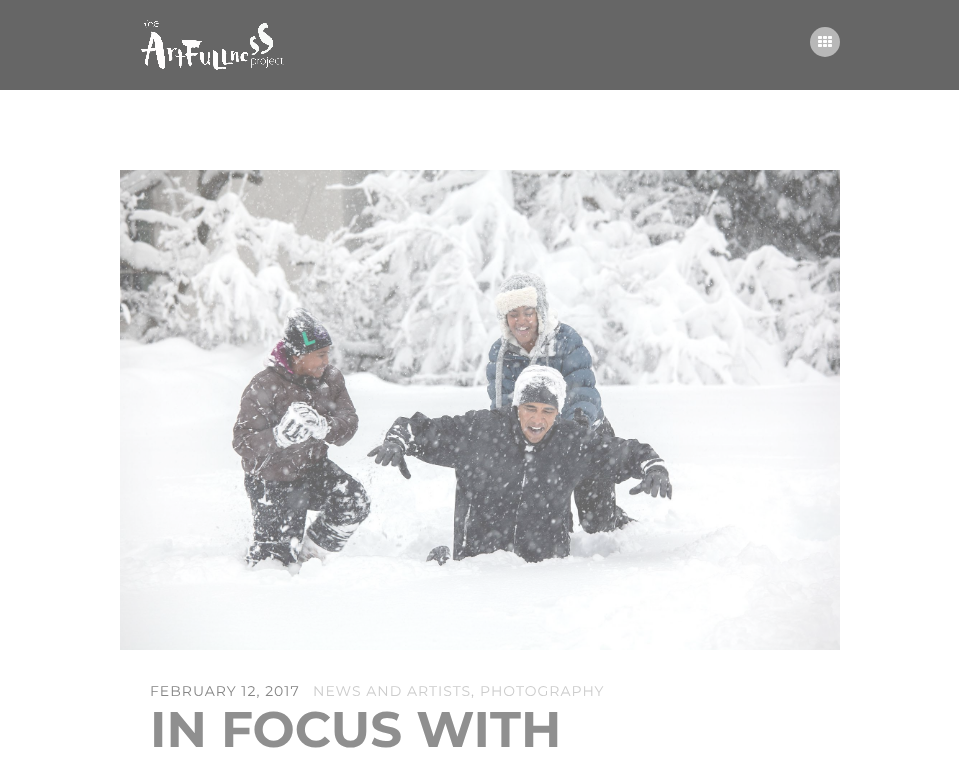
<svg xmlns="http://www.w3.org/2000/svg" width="959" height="772">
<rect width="100%" height="100%" fill="#666"/>
<image x="141" y="20" width="143" height="50" href="media/1.png"/>
<circle cx="825" cy="42" r="15" fill="#b8b8b8"/>
<image x="818" y="36" width="14" height="11" href="media/2.png"/>
<rect y="90" width="959" height="682" fill="#fff"/>
<image x="120" y="170" width="720" height="480" href="media/3.png"/>
<text x="150" y="696" style="font-family:Montserrat;font-size:14px;letter-spacing:1px;fill:#858585">FEBRUARY 12, 2017</text>
<text x="313" y="696" style="font-family:Montserrat;font-size:14px;letter-spacing:1px;fill:#ccc">NEWS AND ARTISTS</text>
<text x="471" y="696" style="font-family:Montserrat;font-size:14px;letter-spacing:1px;fill:#c2c2c2">,</text>
<text x="480" y="696" style="font-family:Montserrat;font-size:14px;letter-spacing:1px;fill:#ccc">PHOTOGRAPHY</text>
<text x="150" y="747" style="font-family:Montserrat;font-size:50px;font-weight:bold;fill:#8f8f8f">IN FOCUS WITH</text>
</svg>
